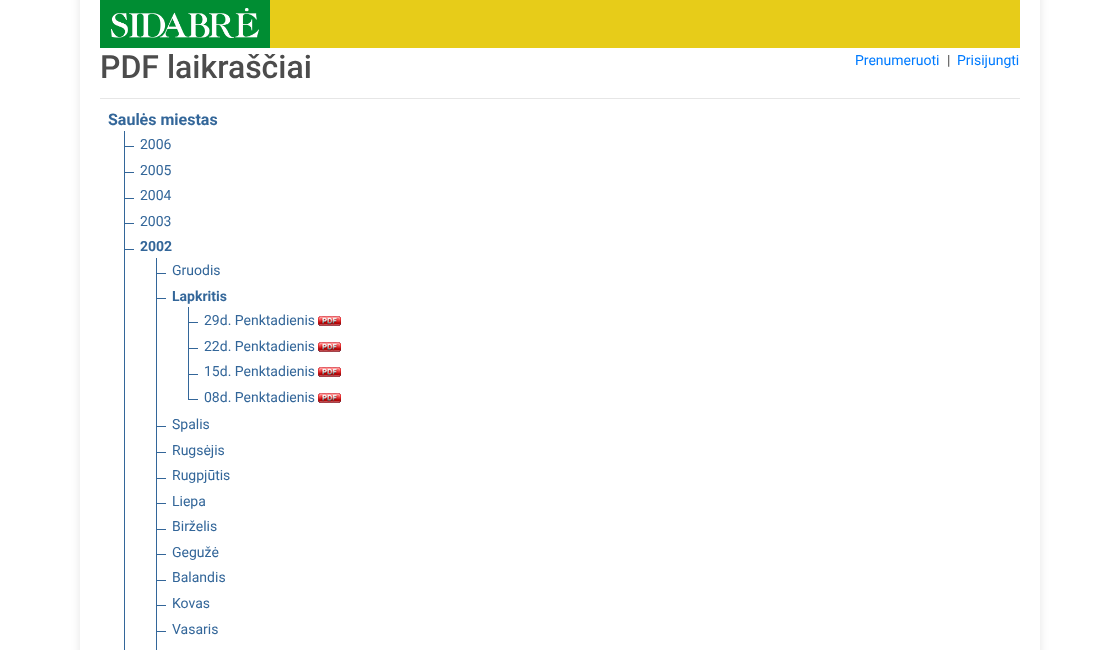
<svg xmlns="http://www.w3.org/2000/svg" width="1119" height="650">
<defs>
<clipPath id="clip1"><path d="M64 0h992v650h-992zm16-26h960v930h-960z" clip-rule="evenodd"/></clipPath>
</defs>
<rect width="100%" height="100%" fill="#fff"/>
<g clip-path="url(#clip1)">
<rect x="80" y="-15" width="960" height="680" fill="#0000001a" filter="blur(5px)"/>
</g>
<rect x="270" width="750" height="48" fill="#e7cc19"/>
<rect x="100" width="170" height="48" fill="#008d33"/>
<image x="111" y="8" width="148" height="30" href="media/1.png"/>
<text x="100" y="78" style="font-family:Roboto;font-size:32px;font-weight:500;fill:#4c4c4c">PDF laikraščiai</text>
<text x="855" y="65" style="font-family:Roboto;font-size:14px;fill:#007bff">Prenumeruoti</text>
<text x="947" y="65" style="font-family:Roboto;font-size:14px;fill:#4c4c4c">|</text>
<text x="957" y="65" style="font-family:Roboto;font-size:14px;fill:#007bff">Prisijungti</text>
<rect x="100" y="98" width="920" height="1" fill="#e6e6e6"/>
<text x="108" y="125" style="font-family:Roboto;font-size:16px;font-weight:bold;fill:#369">Saulės miestas</text>
<rect x="124" y="131" width="1" height="519" fill="#369"/>
<rect x="124" y="146" width="10" height="1" fill="#369"/>
<text x="140" y="149" style="font-family:Roboto;font-size:14px;fill:#369">2006</text>
<rect x="124" y="172" width="10" height="1" fill="#369"/>
<text x="140" y="175" style="font-family:Roboto;font-size:14px;fill:#369">2005</text>
<rect x="124" y="198" width="10" height="1" fill="#369"/>
<text x="140" y="200" style="font-family:Roboto;font-size:14px;fill:#369">2004</text>
<rect x="124" y="223" width="10" height="1" fill="#369"/>
<text x="140" y="226" style="font-family:Roboto;font-size:14px;fill:#369">2003</text>
<rect x="124" y="249" width="10" height="1" fill="#369"/>
<text x="140" y="251" style="font-family:Roboto;font-size:14px;font-weight:bold;fill:#369">2002</text>
<rect x="156" y="258" width="1" height="392" fill="#369"/>
<rect x="156" y="273" width="10" height="1" fill="#369"/>
<text x="172" y="275" style="font-family:Roboto;font-size:14px;fill:#369">Gruodis</text>
<rect x="156" y="298" width="10" height="1" fill="#369"/>
<text x="172" y="301" style="font-family:Roboto;font-size:14px;font-weight:bold;fill:#369">Lapkritis</text>
<rect x="188" y="307" width="1" height="92" fill="#369"/>
<rect x="188" y="322" width="10" height="1" fill="#369"/>
<text x="204" y="325" style="font-family:Roboto;font-size:14px;fill:#369">29d. Penktadienis</text>
<image x="318" y="316" width="23" height="10" href="media/2.png"/>
<rect x="188" y="348" width="10" height="1" fill="#369"/>
<text x="204" y="351" style="font-family:Roboto;font-size:14px;fill:#369">22d. Penktadienis</text>
<image x="318" y="342" width="23" height="10" href="media/2.png"/>
<rect x="188" y="374" width="10" height="1" fill="#369"/>
<text x="204" y="376" style="font-family:Roboto;font-size:14px;fill:#369">15d. Penktadienis</text>
<image x="318" y="367" width="23" height="10" href="media/2.png"/>
<rect x="188" y="399" width="10" height="1" fill="#369"/>
<text x="204" y="402" style="font-family:Roboto;font-size:14px;fill:#369">08d. Penktadienis</text>
<image x="318" y="393" width="23" height="10" href="media/2.png"/>
<rect x="156" y="426" width="10" height="1" fill="#369"/>
<text x="172" y="429" style="font-family:Roboto;font-size:14px;fill:#369">Spalis</text>
<rect x="156" y="452" width="10" height="1" fill="#369"/>
<text x="172" y="455" style="font-family:Roboto;font-size:14px;fill:#369">Rugsėjis</text>
<rect x="156" y="478" width="10" height="1" fill="#369"/>
<text x="172" y="480" style="font-family:Roboto;font-size:14px;fill:#369">Rugpjūtis</text>
<rect x="156" y="503" width="10" height="1" fill="#369"/>
<text x="172" y="506" style="font-family:Roboto;font-size:14px;fill:#369">Liepa</text>
<rect x="156" y="529" width="10" height="1" fill="#369"/>
<text x="172" y="531" style="font-family:Roboto;font-size:14px;fill:#369">Birželis</text>
<rect x="156" y="554" width="10" height="1" fill="#369"/>
<text x="172" y="557" style="font-family:Roboto;font-size:14px;fill:#369">Gegužė</text>
<rect x="156" y="580" width="10" height="1" fill="#369"/>
<text x="172" y="582" style="font-family:Roboto;font-size:14px;fill:#369">Balandis</text>
<rect x="156" y="605" width="10" height="1" fill="#369"/>
<text x="172" y="608" style="font-family:Roboto;font-size:14px;fill:#369">Kovas</text>
<rect x="156" y="631" width="10" height="1" fill="#369"/>
<text x="172" y="634" style="font-family:Roboto;font-size:14px;fill:#369">Vasaris</text>
</svg>
